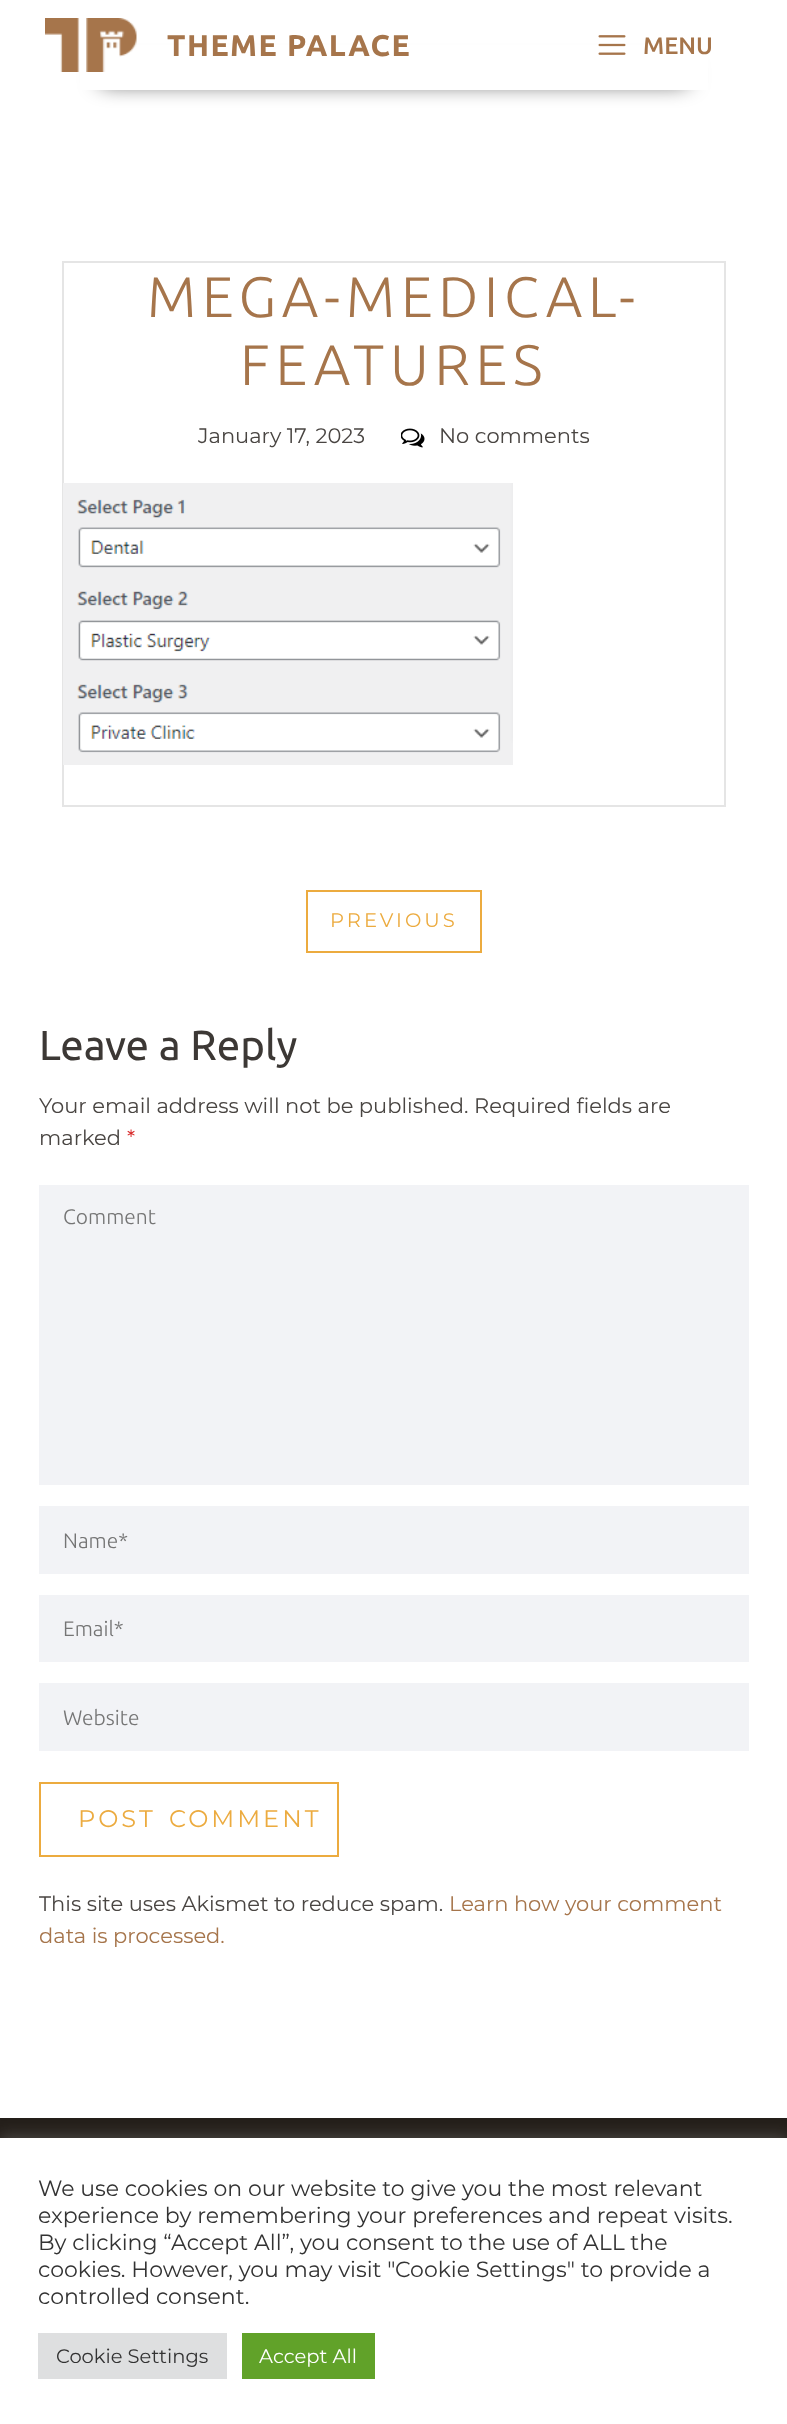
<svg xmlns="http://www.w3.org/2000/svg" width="787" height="2424">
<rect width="100%" height="100%" fill="#fff"/>
<rect x="99" y="68" width="590" height="15" rx="7.5" fill="#000000cc" filter="blur(10.5px)"/>
<rect x="80" y="45" width="628" height="45" fill="#fff"/>
<image x="45" y="18" width="92" height="54" href="media/1.png"/>
<text x="167" y="56" style="font-family:Ubuntu;font-size:30px;font-weight:bold;letter-spacing:1.5px;fill:#a6754b">THEME PALACE</text>
<image x="598" y="35" width="28" height="20" href="media/2.png"/>
<text x="643" y="54" style="font-family:Ubuntu;font-size:24px;font-weight:500;fill:#a6754b">MENU</text>
<rect x="63" y="262" width="662" height="544" fill="none" stroke="#e5e5e5" stroke-width="2"/>
<text x="147" y="317" style="font-family:Ubuntu;font-size:57px;font-weight:300;letter-spacing:5.75px;fill:#a6754b">MEGA-MEDICAL-</text>
<text x="240" y="385" style="font-family:Ubuntu;font-size:57px;font-weight:300;letter-spacing:5.75px;fill:#a6754b">FEATURES</text>
<text x="198" y="443" style="font-family:Montserrat;font-size:21px;fill:#494542">January 17, 2023</text>
<image x="401" y="428" width="24" height="20" href="media/3.png"/>
<text x="439" y="443" style="font-family:Montserrat;font-size:21px;fill:#494542">No comments</text>
<image x="63" y="483" width="450" height="282" href="media/4.png"/>
<rect x="307" y="891" width="174" height="61" fill="none" stroke="#ecab3f" stroke-width="2"/>
<text x="330" y="927" style="font-family:Montserrat;font-size:19.5px;letter-spacing:3px;fill:#ecab3f">PREVIOUS</text>
<text x="39" y="1060" style="font-family:Ubuntu;font-size:42px;fill:#3c3835">Leave a Reply</text>
<text x="39" y="1113" style="font-family:Montserrat;font-size:21px;fill:#494542">Your email address will not be published. Required fields are</text>
<text x="39" y="1145" style="font-family:Montserrat;font-size:21px;fill:#494542">marked</text>
<text x="127" y="1145" style="font-family:Montserrat;font-size:21px;fill:#d72525">*</text>
<rect x="39" y="1185" width="710" height="300" fill="#f2f3f6"/>
<text x="63" y="1224" style="font-family:Ubuntu;font-size:21px;font-weight:300;fill:#757575">Comment</text>
<rect x="39" y="1506" width="710" height="68" fill="#f2f3f6"/>
<text x="63" y="1548" style="font-family:Ubuntu;font-size:21px;font-weight:300;fill:#757575">Name*</text>
<rect x="39" y="1595" width="710" height="67" fill="#f2f3f6"/>
<text x="63" y="1636" style="font-family:Ubuntu;font-size:21px;font-weight:300;fill:#757575">Email*</text>
<rect x="39" y="1683" width="710" height="68" fill="#f2f3f6"/>
<text x="63" y="1725" style="font-family:Ubuntu;font-size:21px;font-weight:300;fill:#757575">Website</text>
<rect x="40" y="1783" width="298" height="73" fill="none" stroke="#ecab3f" stroke-width="2"/>
<text x="78" y="1827" word-spacing="4" style="font-family:Montserrat;font-size:24px;letter-spacing:3px;fill:#ecab3f">POST COMMENT</text>
<text x="39" y="1911" style="font-family:Montserrat;font-size:21px;fill:#494542">This site uses Akismet to reduce spam.</text>
<text x="449" y="1911" style="font-family:Montserrat;font-size:21px;fill:#a6754b">Learn how your comment</text>
<text x="39" y="1943" style="font-family:Montserrat;font-size:21px;fill:#a6754b">data is processed.</text>
<rect y="2118" width="787" height="20" fill="#241f1a"/>
<rect y="2136" width="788" height="287" fill="#acabab4d" filter="blur(7.5px)"/>
<rect y="2138" width="787" height="286" fill="#fff"/>
<text x="38" y="2196" style="font-family:Montserrat;font-size:22px;fill:#333">We use cookies on our website to give you the most relevant</text>
<text x="38" y="2223" style="font-family:Montserrat;font-size:22px;fill:#333">experience by remembering your preferences and repeat visits.</text>
<text x="38" y="2250" style="font-family:Montserrat;font-size:22px;fill:#333">By clicking “Accept All”, you consent to the use of ALL the</text>
<text x="38" y="2277" style="font-family:Montserrat;font-size:22px;fill:#333">cookies. However, you may visit "Cookie Settings" to provide a</text>
<text x="38" y="2304" style="font-family:Montserrat;font-size:22px;fill:#333">controlled consent.</text>
<rect x="38" y="2333" width="189" height="46" fill="#dedfe0"/>
<text x="56" y="2363" style="font-family:Montserrat;font-size:19.5px;fill:#333">Cookie Settings</text>
<rect x="242" y="2333" width="133" height="46" fill="#61a229"/>
<text x="259" y="2363" style="font-family:Montserrat;font-size:19.5px;fill:#fff">Accept All</text>
</svg>
